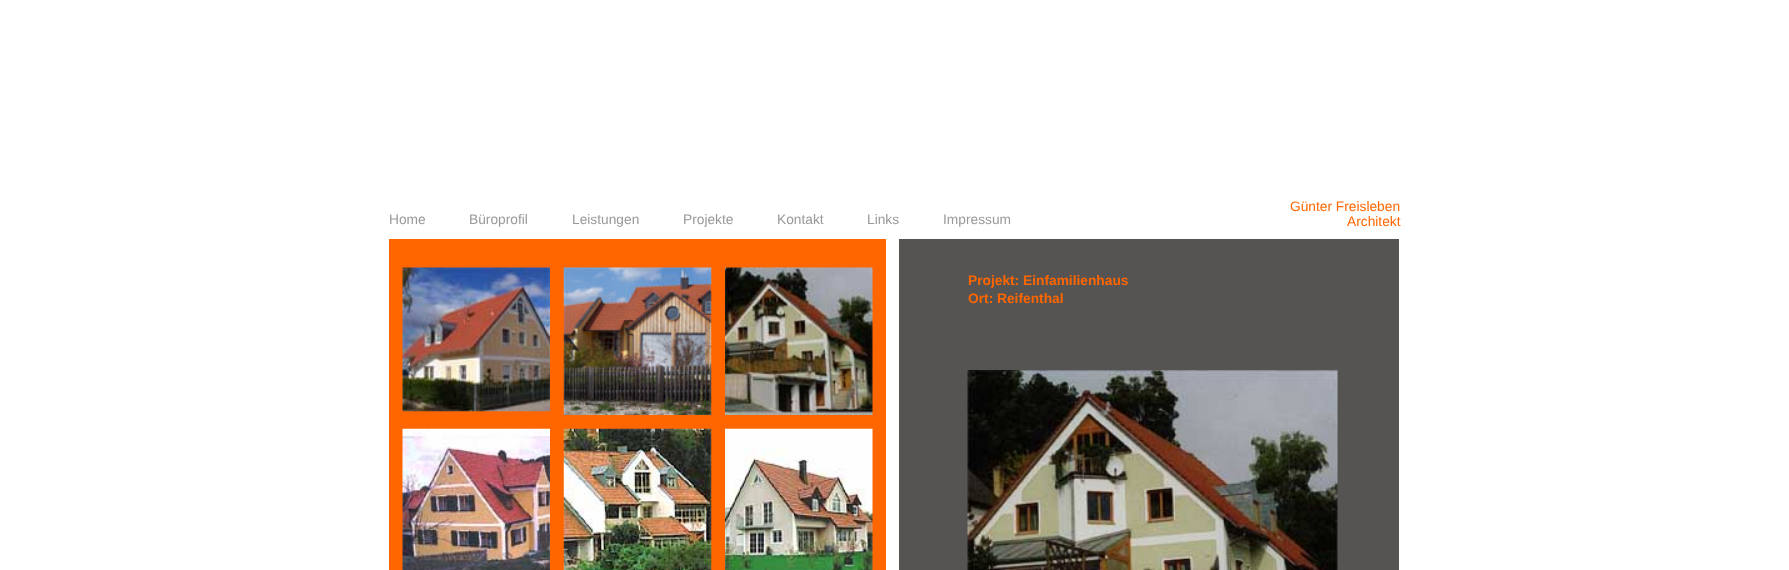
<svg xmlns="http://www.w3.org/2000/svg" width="1789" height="570">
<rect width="100%" height="100%" fill="#fff"/>
<text x="389" y="224" style="font-family:Liberation Sans;font-size:13.75px;fill:#999">Home</text>
<text x="469" y="224" style="font-family:Liberation Sans;font-size:13.75px;fill:#999">Büroprofil</text>
<text x="572" y="224" style="font-family:Liberation Sans;font-size:13.75px;fill:#999">Leistungen</text>
<text x="683" y="224" style="font-family:Liberation Sans;font-size:13.75px;fill:#999">Projekte</text>
<text x="777" y="224" style="font-family:Liberation Sans;font-size:13.75px;fill:#999">Kontakt</text>
<text x="867" y="224" style="font-family:Liberation Sans;font-size:13.75px;fill:#999">Links</text>
<text x="943" y="224" style="font-family:Liberation Sans;font-size:13.75px;fill:#999">Impressum</text>
<text x="1290" y="211" style="font-family:Liberation Sans;font-size:13.75px;fill:#f60">Günter Freisleben</text>
<text x="1347" y="226" style="font-family:Liberation Sans;font-size:13.75px;fill:#f60">Architekt</text>
<rect x="389" y="239" width="497" height="331" fill="#f60"/>
<image x="402" y="267" width="148" height="145" href="media/1.png"/>
<image x="563" y="267" width="149" height="148" href="media/2.png"/>
<image x="725" y="267" width="148" height="148" href="media/3.png"/>
<image x="402" y="428" width="148" height="142" href="media/4.png"/>
<image x="563" y="428" width="149" height="142" href="media/5.png"/>
<image x="725" y="428" width="148" height="142" href="media/6.png"/>
<rect x="899" y="239" width="500" height="331" fill="#555452"/>
<text x="968" y="285" style="font-family:Liberation Sans;font-size:13.75px;font-weight:bold;fill:#f60">Projekt: Einfamilienhaus</text>
<text x="968" y="303" style="font-family:Liberation Sans;font-size:13.75px;font-weight:bold;fill:#f60">Ort: Reifenthal</text>
<image x="967" y="370" width="371" height="200" href="media/7.png"/>
</svg>
